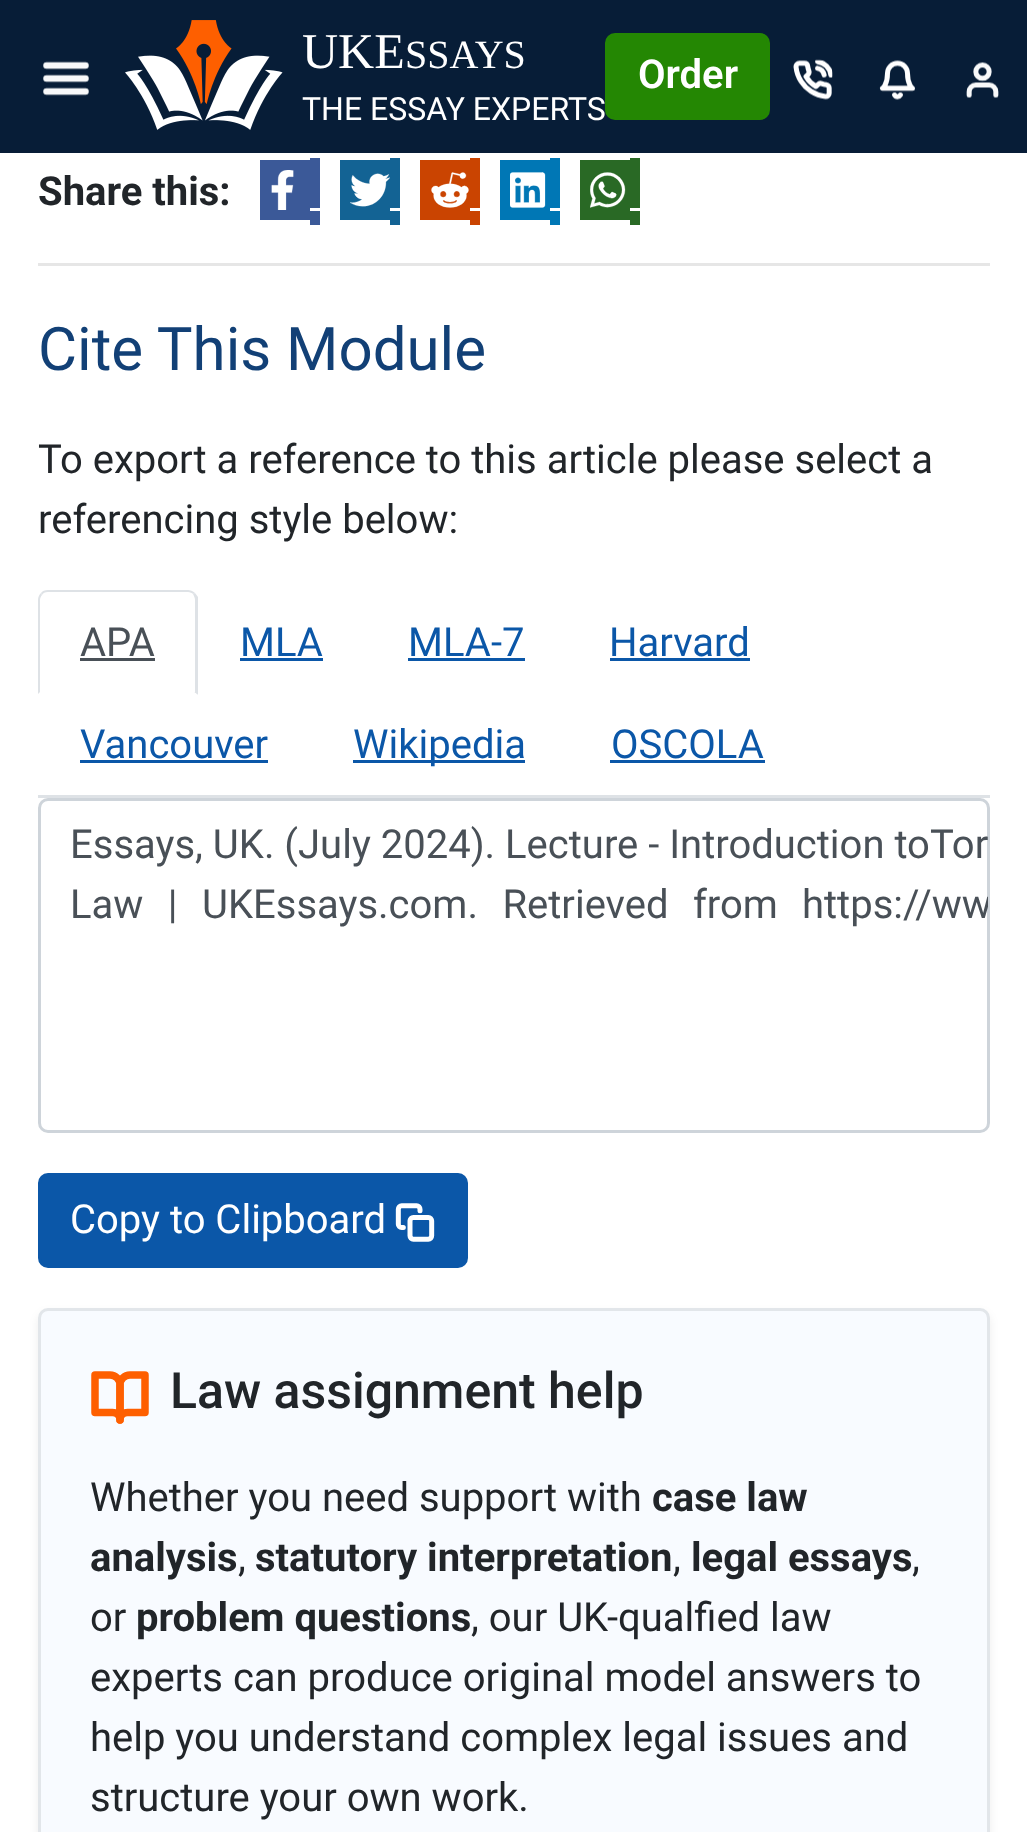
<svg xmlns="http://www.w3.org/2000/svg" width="1027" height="1832">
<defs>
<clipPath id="clip1"><rect x="40" y="800" width="948" height="330" rx="8"/></clipPath>
</defs>
<rect width="100%" height="100%" fill="#fff"/>
<rect width="1027" height="153" fill="#071d37"/>
<image x="43" y="61" width="46" height="35" href="media/1.png"/>
<image x="125" y="20" width="158" height="110" href="media/2.png"/>
<text x="302" y="68" style="font-family:Liberation Serif;font-size:50px;fill:#fff">UKE</text>
<text x="405" y="68" style="font-family:Liberation Serif;font-size:40px;fill:#fff">SSAYS</text>
<text x="302" y="120" style="font-family:Roboto;font-size:32px;fill:#fff">THE ESSAY EXPERTS</text>
<rect x="606.5" y="34.5" width="162" height="84" rx="8.5" fill="#248703" stroke="#248703" stroke-width="3"/>
<text x="638" y="88" style="font-family:Roboto;font-size:40px;font-weight:600;fill:#fff">Order</text>
<image x="793" y="59" width="40" height="41" href="media/3.png"/>
<image x="879" y="60" width="36" height="40" href="media/4.png"/>
<image x="966" y="62" width="33" height="36" href="media/5.png"/>
<rect x="260" y="160" width="50" height="60" fill="#3b5998"/>
<rect x="310" y="158" width="10" height="67" fill="#3b5998"/>
<rect x="340" y="160" width="50" height="60" fill="#136394"/>
<rect x="390" y="158" width="10" height="67" fill="#136394"/>
<rect x="420" y="160" width="50" height="60" fill="#ca4401"/>
<rect x="470" y="158" width="10" height="67" fill="#ca4401"/>
<rect x="500" y="160" width="50" height="60" fill="#0077b5"/>
<rect x="550" y="158" width="10" height="67" fill="#0077b5"/>
<rect x="580" y="160" width="50" height="60" fill="#296925"/>
<rect x="630" y="158" width="10" height="67" fill="#296925"/>
<text x="38" y="205" style="font-family:Roboto;font-size:40px;font-weight:bold;fill:#212529">Share this:</text>
<image x="271" y="170" width="23" height="40" href="media/6.png"/>
<image x="350" y="173" width="40" height="34" href="media/7.png"/>
<image x="431" y="172" width="38" height="36" href="media/8.png"/>
<image x="510" y="172" width="36" height="36" href="media/9.png"/>
<image x="590" y="172" width="36" height="36" href="media/10.png"/>
<rect x="310" y="208" width="10" height="3" fill="#fff"/>
<rect x="390" y="208" width="10" height="3" fill="#fff"/>
<rect x="470" y="208" width="10" height="3" fill="#fff"/>
<rect x="550" y="208" width="10" height="3" fill="#fff"/>
<rect x="630" y="208" width="10" height="3" fill="#fff"/>
<rect x="38" y="263" width="952" height="3" fill="#e6e6e6"/>
<text x="38" y="370" style="font-family:Roboto;font-size:60px;fill:#124076">Cite This Module</text>
<text x="38" y="473" style="font-family:Roboto;font-size:40px;fill:#212529">To export a reference to this article please select a</text>
<text x="38" y="533" style="font-family:Roboto;font-size:40px;fill:#212529">referencing style below:</text>
<rect x="38" y="795" width="952" height="3" fill="#dee2e6"/>
<path d="M48 590c-3 0-6 1-7 3l1 2c1-2 3-3 6-3h140c2 0 4 1 5 2l2-1c-2-2-5-3-7-3z" fill="#dee2e6"/>
<path d="M198 597v98l-4-3h1v-92c0-2-1-4-2-6l2-1z" fill="#dee2e6"/>
<path d="M198 695l-4-3h-154l-2 3z" fill="#fff"/>
<path d="M41 593c-2 2-3 4-3 7v94l2-2v-92c0-2 1-4 2-5z" fill="#dee2e6"/>
<text x="80" y="656" style="font-family:Roboto;font-size:40px;fill:#495057">APA</text>
<rect x="80" y="658" width="75" height="3" fill="#495057"/>
<text x="240" y="656" style="font-family:Roboto;font-size:40px;fill:#0b57a8">MLA</text>
<rect x="240" y="658" width="83" height="3" fill="#0b57a8"/>
<text x="408" y="656" style="font-family:Roboto;font-size:40px;fill:#0b57a8">MLA-7</text>
<rect x="408" y="658" width="117" height="3" fill="#0b57a8"/>
<text x="609" y="656" style="font-family:Roboto;font-size:40px;fill:#0b57a8">Harvard</text>
<rect x="610" y="658" width="140" height="3" fill="#0b57a8"/>
<text x="80" y="758" style="font-family:Roboto;font-size:40px;fill:#0b57a8">Vancouver</text>
<rect x="80" y="760" width="188" height="3" fill="#0b57a8"/>
<rect x="353" y="760" width="172" height="3" fill="#0b57a8"/>
<text x="353" y="758" style="font-family:Roboto;font-size:40px;fill:#0b57a8">Wikipedia</text>
<text x="611" y="758" style="font-family:Roboto;font-size:40px;fill:#0b57a8">OSCOLA</text>
<rect x="610" y="760" width="155" height="3" fill="#0b57a8"/>
<rect x="39.5" y="799.5" width="949" height="332" rx="8.5" fill="none" stroke="#ced4da" stroke-width="3"/>
<text x="70" y="858" style="font-family:Roboto;font-size:40px;fill:#495057">Essays, UK. (July 2024). Lecture - Introduction toTor</text>
<text x="70" y="918" word-spacing="14.5" style="font-family:Roboto;font-size:40px;fill:#495057">Law | UKEssays.com. Retrieved from</text>
<g clip-path="url(#clip1)">
<text x="802" y="918" style="font-family:Roboto;font-size:40px;fill:#495057">https://ww</text>
</g>
<rect x="39.5" y="1174.5" width="427" height="92" rx="8.5" fill="#0b57a8" stroke="#0b57a8" stroke-width="3"/>
<text x="70" y="1233" style="font-family:Roboto;font-size:40px;fill:#fff">Copy to Clipboard</text>
<image x="395" y="1203" width="40" height="39" href="media/11.png"/>
<rect x="38" y="1313" width="952" height="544" rx="10" fill="#00000012" filter="blur(5px)"/>
<rect x="39.5" y="1309.5" width="949" height="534" rx="8.5" fill="#f8fbff" stroke="#e2e6ea" stroke-width="3"/>
<image x="91" y="1371" width="58" height="53" href="media/12.png"/>
<text x="170" y="1408" style="font-family:Roboto;font-size:50px;font-weight:500;fill:#212529">Law assignment help</text>
<text x="90" y="1511" style="font-family:Roboto;font-size:40px;fill:#212529">Whether you need support with</text>
<text x="652" y="1511" style="font-family:Roboto;font-size:40px;font-weight:bold;fill:#212529">case law</text>
<text x="90" y="1571" style="font-family:Roboto;font-size:40px;font-weight:bold;fill:#212529">analysis</text>
<text x="238" y="1571" style="font-family:Roboto;font-size:40px;fill:#212529">,</text>
<text x="255" y="1571" style="font-family:Roboto;font-size:40px;font-weight:bold;fill:#212529">statutory interpretation</text>
<text x="673" y="1571" style="font-family:Roboto;font-size:40px;fill:#212529">,</text>
<text x="691" y="1571" style="font-family:Roboto;font-size:40px;font-weight:bold;fill:#212529">legal essays</text>
<text x="912" y="1571" style="font-family:Roboto;font-size:40px;fill:#212529">,</text>
<text x="90" y="1631" style="font-family:Roboto;font-size:40px;fill:#212529">or</text>
<text x="136" y="1631" style="font-family:Roboto;font-size:40px;font-weight:bold;fill:#212529">problem questions</text>
<text x="471" y="1631" style="font-family:Roboto;font-size:40px;fill:#212529">, our UK-qualfied law</text>
<text x="90" y="1691" style="font-family:Roboto;font-size:40px;fill:#212529">experts can produce original model answers to</text>
<text x="90" y="1751" style="font-family:Roboto;font-size:40px;fill:#212529">help you understand complex legal issues and</text>
<text x="90" y="1811" style="font-family:Roboto;font-size:40px;fill:#212529">structure your own work.</text>
</svg>
